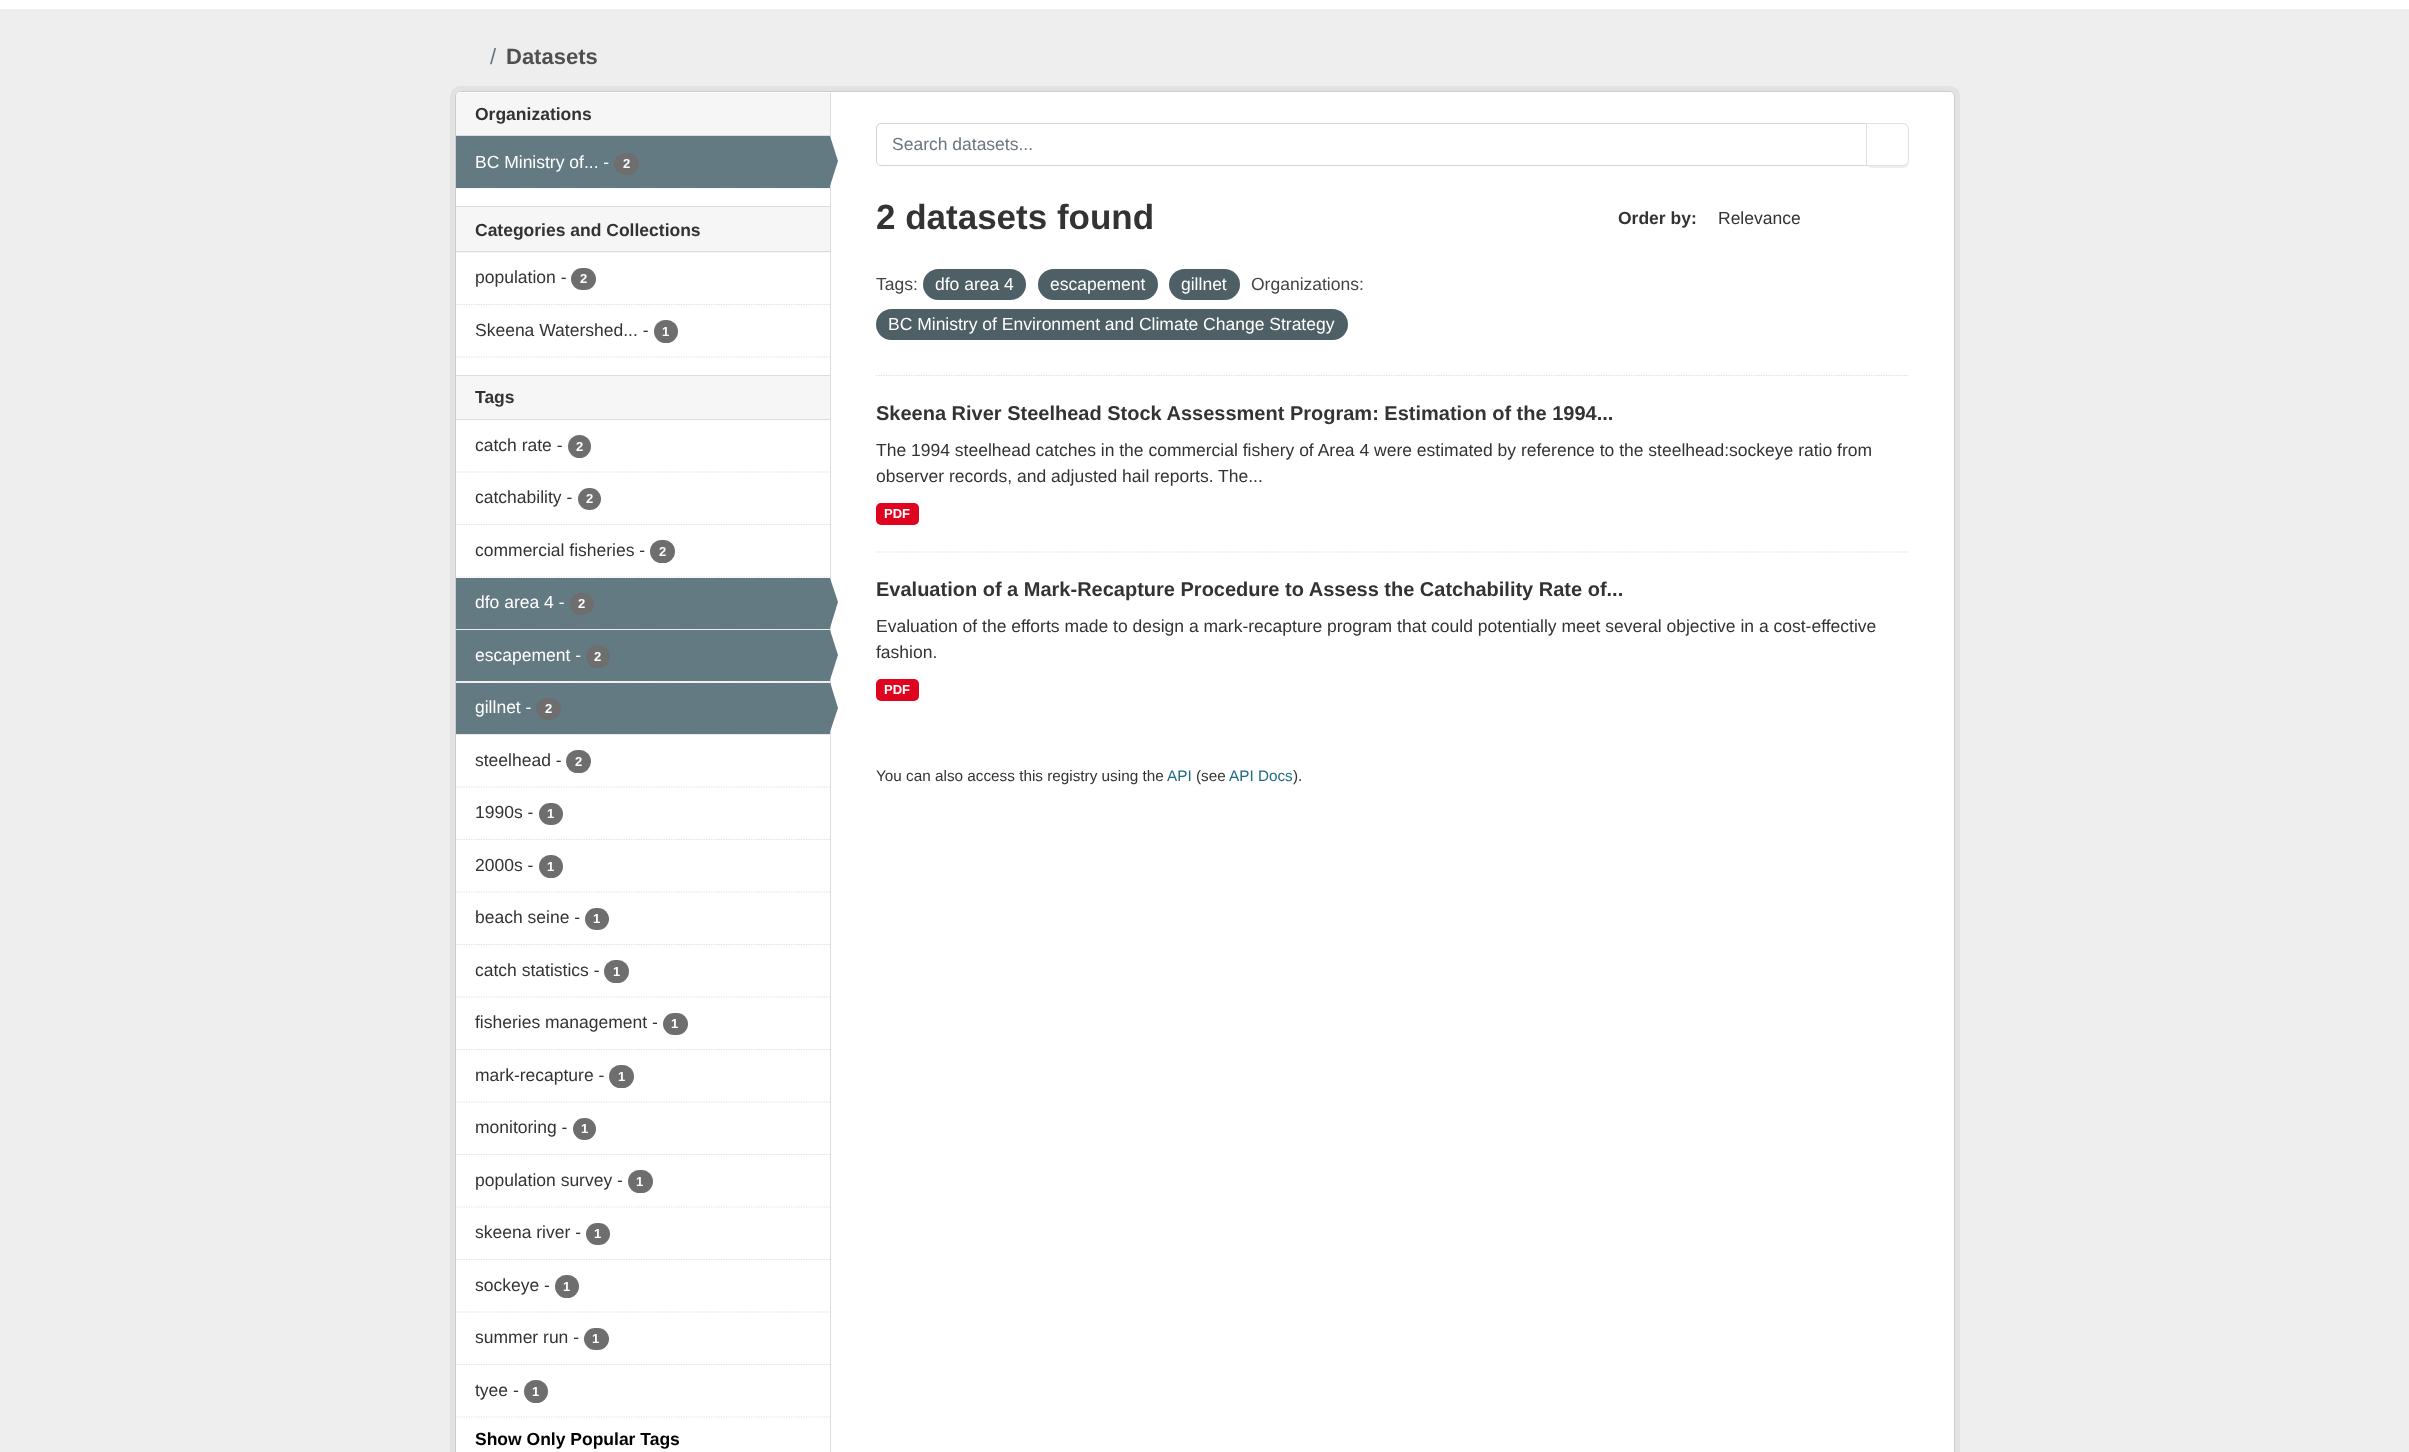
<svg xmlns="http://www.w3.org/2000/svg" width="2409" height="1452">
<rect width="100%" height="100%" fill="#fff"/>
<rect y="9" width="2409" height="1443" fill="#eee"/>
<text x="490" y="64" style="font-family:Liberation Sans;font-size:22px;fill:#6c757d">/</text>
<text x="506" y="64" style="font-family:Liberation Sans;font-size:22px;font-weight:bold;fill:#505050">Datasets</text>
<rect x="452.5" y="88.5" width="1505" height="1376" rx="7.5" fill="none" stroke="#e2e2e2" stroke-width="5"/>
<rect x="455.5" y="91.5" width="1499" height="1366" rx="4.5" fill="#fff" stroke="#ccc"/>
<path d="M460 93h370v43h-374v-39c0-2 2-4 4-4z" fill="#f6f6f6"/>
<rect x="456" y="135" width="374" height="1" fill="#ddd"/>
<text x="475" y="120" style="font-family:Liberation Sans;font-size:17.5px;font-weight:bold;fill:#333">Organizations</text>
<path d="M456 188h374" fill="none" stroke="#ddd" stroke-width="1.2" stroke-dasharray="1.25 1.25"/>
<rect x="456" y="136" width="374" height="52" fill="#647a82"/>
<text x="475" y="168" style="font-family:Liberation Sans;font-size:17.5px;fill:#fff">BC Ministry of... -</text>
<rect x="614" y="153" width="25" height="22" rx="11" fill="#6e6e6e"/>
<text x="623" y="168" style="font-family:Liberation Sans;font-size:13px;font-weight:bold;fill:#fff">2</text>
<rect x="830" y="93" width="1" height="1359" fill="#ddd"/>
<path d="M830 186v-50l8 25z" fill="#647a82"/>
<rect x="456" y="207" width="374" height="46" fill="#f6f6f6"/>
<rect x="456" y="206" width="374" height="1" fill="#ddd"/>
<rect x="456" y="251" width="374" height="1" fill="#ddd"/>
<text x="475" y="236" style="font-family:Liberation Sans;font-size:17.5px;font-weight:bold;fill:#333">Categories and Collections</text>
<path d="M456 304.5h374" fill="none" stroke="#ddd" stroke-width="1.2" stroke-dasharray="1.25 1.25"/>
<text x="475" y="283" style="font-family:Liberation Sans;font-size:17.5px;fill:#333">population -</text>
<rect x="571" y="268" width="25" height="22" rx="11" fill="#6e6e6e"/>
<text x="580" y="283" style="font-family:Liberation Sans;font-size:13px;font-weight:bold;fill:#fff">2</text>
<text x="475" y="336" style="font-family:Liberation Sans;font-size:17.5px;fill:#333">Skeena Watershed... -</text>
<rect x="654" y="320" width="24" height="23" rx="11.5" fill="#6e6e6e"/>
<text x="662" y="336" style="font-family:Liberation Sans;font-size:13px;font-weight:bold;fill:#fff">1</text>
<path d="M456 357h374" fill="none" stroke="#ddd" stroke-width="1.2" stroke-dasharray="1.25 1.25"/>
<rect x="456" y="376" width="374" height="43" fill="#f6f6f6"/>
<rect x="456" y="375" width="374" height="1" fill="#ddd"/>
<rect x="456" y="419" width="374" height="1" fill="#ddd"/>
<text x="475" y="403" style="font-family:Liberation Sans;font-size:17.5px;font-weight:bold;fill:#333">Tags</text>
<path d="M456 472h374" fill="none" stroke="#ddd" stroke-width="1.2" stroke-dasharray="1.25 1.25"/>
<text x="475" y="451" style="font-family:Liberation Sans;font-size:17.5px;fill:#333">catch rate -</text>
<circle cx="579.5" cy="446.5" r="11.5" fill="#6e6e6e"/>
<text x="576" y="451" style="font-family:Liberation Sans;font-size:13px;font-weight:bold;fill:#fff">2</text>
<path d="M456 524.5h374" fill="none" stroke="#ddd" stroke-width="1.2" stroke-dasharray="1.25 1.25"/>
<text x="475" y="503" style="font-family:Liberation Sans;font-size:17.5px;fill:#333">catchability -</text>
<rect x="578" y="488" width="23" height="22" rx="11" fill="#6e6e6e"/>
<text x="586" y="503" style="font-family:Liberation Sans;font-size:13px;font-weight:bold;fill:#fff">2</text>
<path d="M456 577h374" fill="none" stroke="#ddd" stroke-width="1.2" stroke-dasharray="1.25 1.25"/>
<text x="475" y="556" style="font-family:Liberation Sans;font-size:17.5px;fill:#333">commercial fisheries -</text>
<rect x="650" y="540" width="25" height="23" rx="11.5" fill="#6e6e6e"/>
<text x="659" y="556" style="font-family:Liberation Sans;font-size:13px;font-weight:bold;fill:#fff">2</text>
<rect x="457" y="629" width="373" height="1" fill="#f6f6f6"/>
<path d="M456 629.5h374" fill="none" stroke="#ddd" stroke-width="1.2" stroke-dasharray="1.25 1.25"/>
<rect x="456" y="578" width="374" height="51" fill="#647a82"/>
<text x="475" y="608" style="font-family:Liberation Sans;font-size:17.5px;fill:#fff">dfo area 4 -</text>
<rect x="570" y="593" width="24" height="22" rx="11" fill="#6e6e6e"/>
<text x="578" y="608" style="font-family:Liberation Sans;font-size:13px;font-weight:bold;fill:#fff">2</text>
<path d="M830 628v-50l8 24z" fill="#647a82"/>
<rect x="456" y="681" width="374" height="2" fill="#f6f6f6"/>
<path d="M456 682h374" fill="none" stroke="#ddd" stroke-width="1.2" stroke-dasharray="1.25 1.25"/>
<rect x="456" y="630" width="374" height="51" fill="#647a82"/>
<text x="475" y="661" style="font-family:Liberation Sans;font-size:17.5px;fill:#fff">escapement -</text>
<rect x="586" y="645" width="24" height="23" rx="11.5" fill="#6e6e6e"/>
<text x="594" y="661" style="font-family:Liberation Sans;font-size:13px;font-weight:bold;fill:#fff">2</text>
<path d="M830 680v-50l8 25z" fill="#647a82"/>
<rect x="457" y="734" width="373" height="1" fill="#f6f6f6"/>
<path d="M456 734.5h374" fill="none" stroke="#ddd" stroke-width="1.2" stroke-dasharray="1.25 1.25"/>
<rect x="456" y="683" width="374" height="51" fill="#647a82"/>
<text x="475" y="713" style="font-family:Liberation Sans;font-size:17.5px;fill:#fff">gillnet -</text>
<rect x="536" y="698" width="25" height="22" rx="11" fill="#6e6e6e"/>
<text x="545" y="713" style="font-family:Liberation Sans;font-size:13px;font-weight:bold;fill:#fff">2</text>
<path d="M830 732v-50l8 26z" fill="#647a82"/>
<path d="M456 787h374" fill="none" stroke="#ddd" stroke-width="1.2" stroke-dasharray="1.25 1.25"/>
<text x="475" y="766" style="font-family:Liberation Sans;font-size:17.5px;fill:#333">steelhead -</text>
<rect x="566" y="750" width="25" height="23" rx="11.5" fill="#6e6e6e"/>
<text x="575" y="766" style="font-family:Liberation Sans;font-size:13px;font-weight:bold;fill:#fff">2</text>
<path d="M456 839.5h374" fill="none" stroke="#ddd" stroke-width="1.2" stroke-dasharray="1.25 1.25"/>
<text x="475" y="818" style="font-family:Liberation Sans;font-size:17.5px;fill:#333">1990s -</text>
<rect x="539" y="803" width="24" height="22" rx="11" fill="#6e6e6e"/>
<text x="547" y="818" style="font-family:Liberation Sans;font-size:13px;font-weight:bold;fill:#fff">1</text>
<path d="M456 892h374" fill="none" stroke="#ddd" stroke-width="1.2" stroke-dasharray="1.25 1.25"/>
<text x="475" y="871" style="font-family:Liberation Sans;font-size:17.5px;fill:#333">2000s -</text>
<rect x="539" y="855" width="24" height="23" rx="11.5" fill="#6e6e6e"/>
<text x="547" y="871" style="font-family:Liberation Sans;font-size:13px;font-weight:bold;fill:#fff">1</text>
<path d="M456 944.5h374" fill="none" stroke="#ddd" stroke-width="1.2" stroke-dasharray="1.25 1.25"/>
<text x="475" y="923" style="font-family:Liberation Sans;font-size:17.5px;fill:#333">beach seine -</text>
<rect x="585" y="908" width="24" height="22" rx="11" fill="#6e6e6e"/>
<text x="593" y="923" style="font-family:Liberation Sans;font-size:13px;font-weight:bold;fill:#fff">1</text>
<path d="M456 997h374" fill="none" stroke="#ddd" stroke-width="1.2" stroke-dasharray="1.25 1.25"/>
<text x="475" y="976" style="font-family:Liberation Sans;font-size:17.5px;fill:#333">catch statistics -</text>
<rect x="604" y="960" width="25" height="23" rx="11.5" fill="#6e6e6e"/>
<text x="613" y="976" style="font-family:Liberation Sans;font-size:13px;font-weight:bold;fill:#fff">1</text>
<path d="M456 1049.5h374" fill="none" stroke="#ddd" stroke-width="1.2" stroke-dasharray="1.25 1.25"/>
<text x="475" y="1028" style="font-family:Liberation Sans;font-size:17.5px;fill:#333">fisheries management -</text>
<rect x="663" y="1013" width="25" height="22" rx="11" fill="#6e6e6e"/>
<text x="671" y="1028" style="font-family:Liberation Sans;font-size:13px;font-weight:bold;fill:#fff">1</text>
<path d="M456 1102h374" fill="none" stroke="#ddd" stroke-width="1.2" stroke-dasharray="1.25 1.25"/>
<text x="475" y="1081" style="font-family:Liberation Sans;font-size:17.5px;fill:#333">mark-recapture -</text>
<rect x="609" y="1065" width="25" height="23" rx="11.5" fill="#6e6e6e"/>
<text x="618" y="1081" style="font-family:Liberation Sans;font-size:13px;font-weight:bold;fill:#fff">1</text>
<path d="M456 1154.5h374" fill="none" stroke="#ddd" stroke-width="1.2" stroke-dasharray="1.25 1.25"/>
<text x="475" y="1133" style="font-family:Liberation Sans;font-size:17.5px;fill:#333">monitoring -</text>
<rect x="573" y="1118" width="23" height="22" rx="11" fill="#6e6e6e"/>
<text x="581" y="1133" style="font-family:Liberation Sans;font-size:13px;font-weight:bold;fill:#fff">1</text>
<path d="M456 1207h374" fill="none" stroke="#ddd" stroke-width="1.2" stroke-dasharray="1.25 1.25"/>
<text x="475" y="1186" style="font-family:Liberation Sans;font-size:17.5px;fill:#333">population survey -</text>
<rect x="628" y="1170" width="25" height="23" rx="11.5" fill="#6e6e6e"/>
<text x="636" y="1186" style="font-family:Liberation Sans;font-size:13px;font-weight:bold;fill:#fff">1</text>
<path d="M456 1259.5h374" fill="none" stroke="#ddd" stroke-width="1.2" stroke-dasharray="1.25 1.25"/>
<text x="475" y="1238" style="font-family:Liberation Sans;font-size:17.5px;fill:#333">skeena river -</text>
<rect x="586" y="1223" width="24" height="22" rx="11" fill="#6e6e6e"/>
<text x="594" y="1238" style="font-family:Liberation Sans;font-size:13px;font-weight:bold;fill:#fff">1</text>
<path d="M456 1312h374" fill="none" stroke="#ddd" stroke-width="1.2" stroke-dasharray="1.25 1.25"/>
<text x="475" y="1291" style="font-family:Liberation Sans;font-size:17.5px;fill:#333">sockeye -</text>
<rect x="555" y="1275" width="24" height="23" rx="11.5" fill="#6e6e6e"/>
<text x="563" y="1291" style="font-family:Liberation Sans;font-size:13px;font-weight:bold;fill:#fff">1</text>
<path d="M456 1364.5h374" fill="none" stroke="#ddd" stroke-width="1.2" stroke-dasharray="1.25 1.25"/>
<text x="475" y="1343" style="font-family:Liberation Sans;font-size:17.5px;fill:#333">summer run -</text>
<rect x="584" y="1328" width="25" height="22" rx="11" fill="#6e6e6e"/>
<text x="592" y="1343" style="font-family:Liberation Sans;font-size:13px;font-weight:bold;fill:#fff">1</text>
<text x="475" y="1396" style="font-family:Liberation Sans;font-size:17.5px;fill:#333">tyee -</text>
<rect x="524" y="1380" width="24" height="23" rx="11.5" fill="#6e6e6e"/>
<text x="532" y="1396" style="font-family:Liberation Sans;font-size:13px;font-weight:bold;fill:#fff">1</text>
<path d="M456 1417h374" fill="none" stroke="#ddd" stroke-width="1.2" stroke-dasharray="1.25 1.25"/>
<text x="475" y="1445" style="font-family:Liberation Sans;font-size:17.5px;font-weight:bold;fill:#000">Show Only Popular Tags</text>
<path d="M876 375.5h1033" fill="none" stroke="#ddd" stroke-width="1.2" stroke-dasharray="1.25 1.25"/>
<path d="M881 123.5h986.5v42h-986.5c-2.5 0-4.5-2-4.5-4.5v-33c0-2.5 2-4.5 4.5-4.5z" fill="none" stroke="#ced4da"/>
<text x="892" y="150" style="font-family:Liberation Sans;font-size:17.5px;fill:#6c757d">Search datasets...</text>
<rect x="1866" y="124" width="43" height="44" rx="6" fill="#00000012" filter="blur(0.5px)"/>
<path d="M1866.5 123.5h36.5c3 0 5.5 2.5 5.5 5.5v31c0 3-2.5 5.5-5.5 5.5h-36.5z" fill="#fff" stroke="#dee2e6"/>
<text x="876" y="229" style="font-family:Liberation Sans;font-size:35px;font-weight:bold;fill:#333">2 datasets found</text>
<text x="1618" y="224" style="font-family:Liberation Sans;font-size:17.5px;font-weight:bold;fill:#333">Order by:</text>
<text x="1718" y="224" style="font-family:Liberation Sans;font-size:17.5px;fill:#333">Relevance</text>
<text x="876" y="290" style="font-family:Liberation Sans;font-size:17.5px;fill:#444">Tags:</text>
<rect x="923" y="269" width="103" height="31" rx="15.5" fill="#4e5f65"/>
<text x="935" y="290" style="font-family:Liberation Sans;font-size:17.5px;fill:#fff">dfo area 4</text>
<rect x="1038" y="269" width="120" height="31" rx="15.5" fill="#4e5f65"/>
<text x="1050" y="290" style="font-family:Liberation Sans;font-size:17.5px;fill:#fff">escapement</text>
<rect x="1169" y="269" width="71" height="31" rx="15.5" fill="#4e5f65"/>
<text x="1181" y="290" style="font-family:Liberation Sans;font-size:17.5px;fill:#fff">gillnet</text>
<text x="1251" y="290" style="font-family:Liberation Sans;font-size:17.5px;fill:#444">Organizations:</text>
<rect x="876" y="309" width="472" height="31" rx="15.5" fill="#4e5f65"/>
<text x="888" y="330" style="font-family:Liberation Sans;font-size:17.5px;fill:#fff">BC Ministry of Environment and Climate Change Strategy</text>
<path d="M876 552h1033" fill="none" stroke="#ddd" stroke-width="1.2" stroke-dasharray="1.25 1.25"/>
<text x="876" y="420" style="font-family:Liberation Sans;font-size:20px;font-weight:bold;fill:#333">Skeena River Steelhead Stock Assessment Program: Estimation of the 1994...</text>
<text x="876" y="456" style="font-family:Liberation Sans;font-size:17.5px;fill:#333">The 1994 steelhead catches in the commercial fishery of Area 4 were estimated by reference to the steelhead:sockeye ratio from</text>
<text x="876" y="482" style="font-family:Liberation Sans;font-size:17.5px;fill:#333">observer records, and adjusted hail reports. The...</text>
<rect x="876" y="503" width="43" height="22" rx="5" fill="#e0051e"/>
<text x="884" y="518" style="font-family:Liberation Sans;font-size:13px;font-weight:bold;fill:#fff">PDF</text>
<text x="876" y="596" style="font-family:Liberation Sans;font-size:20px;font-weight:bold;fill:#333">Evaluation of a Mark-Recapture Procedure to Assess the Catchability Rate of...</text>
<text x="876" y="632" style="font-family:Liberation Sans;font-size:17.5px;fill:#333">Evaluation of the efforts made to design a mark-recapture program that could potentially meet several objective in a cost-effective</text>
<text x="876" y="658" style="font-family:Liberation Sans;font-size:17.5px;fill:#333">fashion.</text>
<rect x="876" y="679" width="43" height="22" rx="5" fill="#e0051e"/>
<text x="884" y="694" style="font-family:Liberation Sans;font-size:13px;font-weight:bold;fill:#fff">PDF</text>
<text x="876" y="781" style="font-family:Liberation Sans;font-size:15.3px;fill:#333">You can also access this registry using the</text>
<text x="1167" y="781" style="font-family:Liberation Sans;font-size:15.3px;fill:#206b82">API</text>
<text x="1196" y="781" style="font-family:Liberation Sans;font-size:15.3px;fill:#333">(see</text>
<text x="1229" y="781" style="font-family:Liberation Sans;font-size:15.3px;fill:#206b82">API Docs</text>
<text x="1293" y="781" style="font-family:Liberation Sans;font-size:15.3px;fill:#333">).</text>
</svg>
